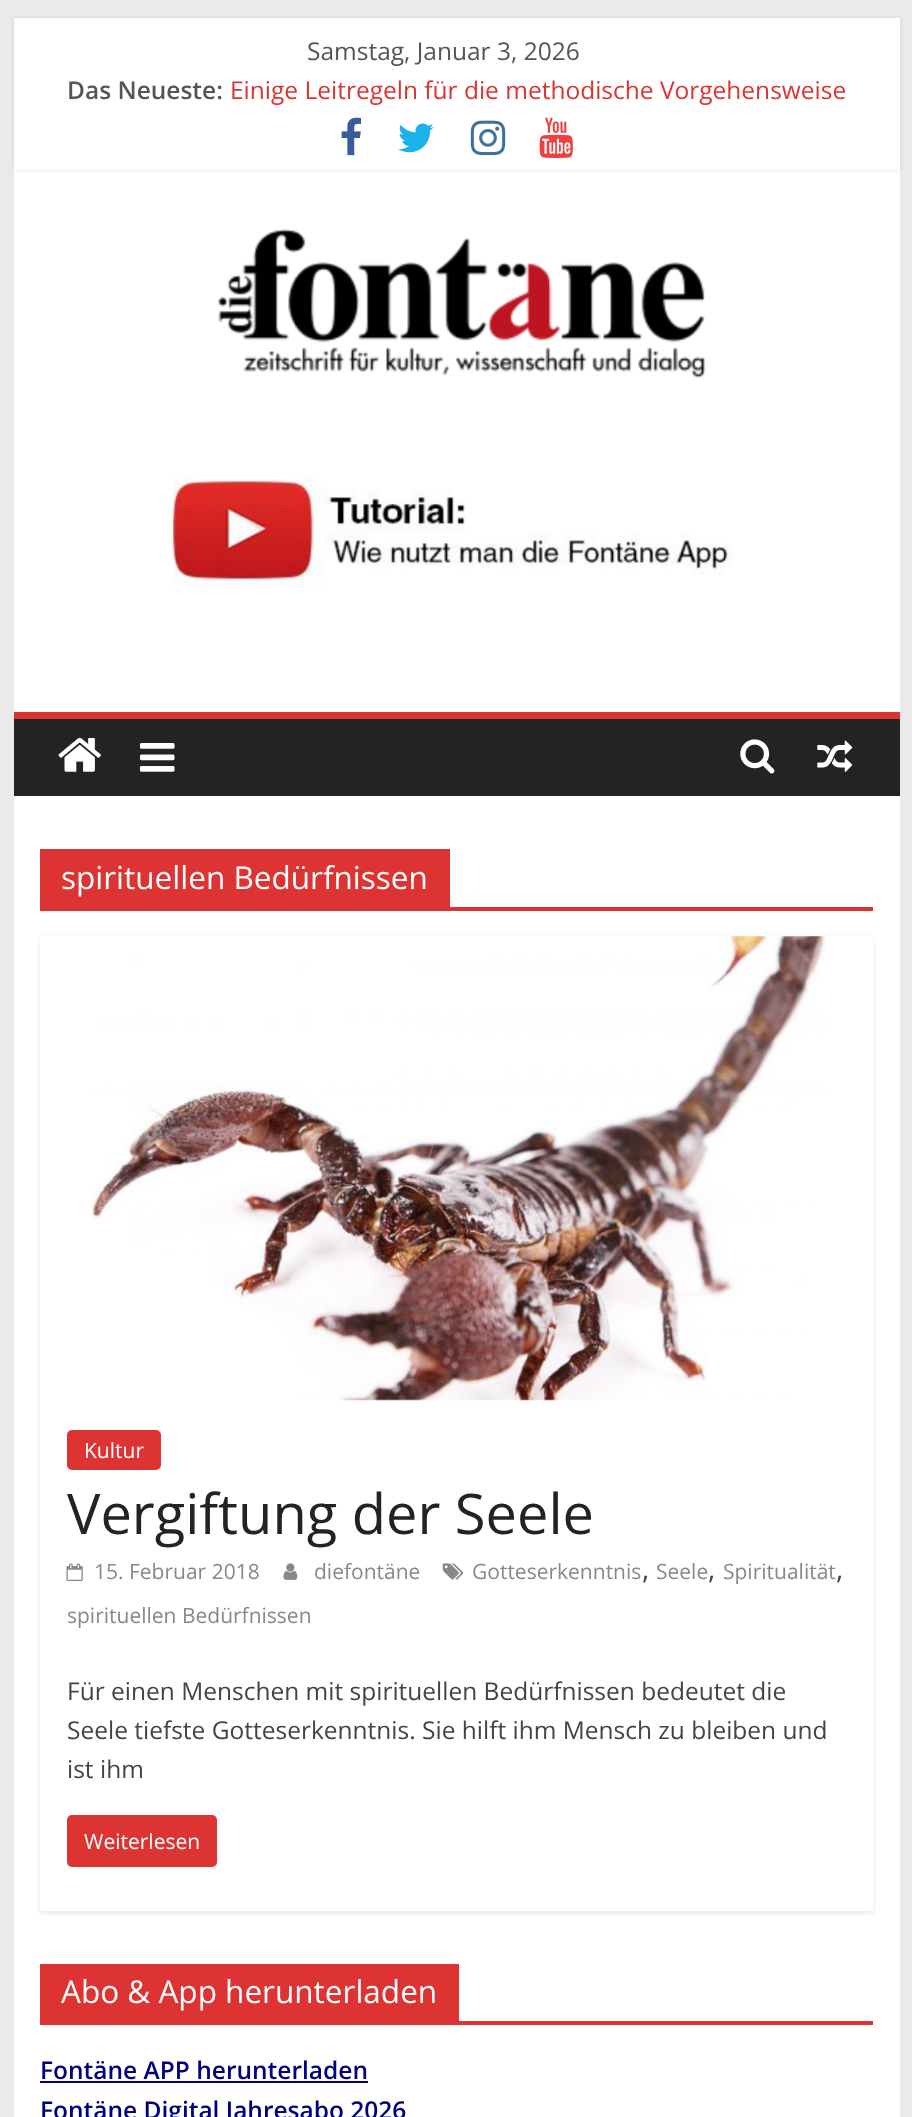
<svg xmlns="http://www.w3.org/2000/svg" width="912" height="2117">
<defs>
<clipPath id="clip1"><path d="M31 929h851v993h-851zm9 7h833v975h-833z" clip-rule="evenodd"/></clipPath>
</defs>
<rect width="100%" height="100%" fill="#eaeaea"/>
<rect x="14" y="170" width="886" height="542" fill="#fff"/>
<rect x="14" y="18" width="886" height="152" fill="#0000001a" filter="blur(2px)"/>
<rect x="14" y="18" width="886" height="152" fill="#fff"/>
<text x="307" y="60" style="font-family:Open Sans;font-size:24.5px;fill:#555">Samstag, Januar 3, 2026</text>
<text x="67" y="99" style="font-family:Open Sans;font-size:24.5px;font-weight:600;fill:#555">Das Neueste:</text>
<text x="230" y="99" style="font-family:Open Sans;font-size:24.5px;fill:#d33">Einige Leitregeln für die methodische Vorgehensweise</text>
<image x="341" y="117" width="21" height="39" href="media/1.png"/>
<image x="398" y="123" width="36" height="30" href="media/2.png"/>
<image x="470" y="120" width="36" height="36" href="media/3.png"/>
<image x="539" y="117" width="34" height="41" href="media/4.png"/>
<image x="218" y="228" width="488" height="150" href="media/5.png"/>
<image x="173" y="478" width="561" height="109" href="media/6.png"/>
<rect x="14" y="719" width="886" height="77" fill="#232323"/>
<rect x="14" y="712" width="886" height="7" fill="#d33"/>
<image x="58" y="737" width="43" height="35" href="media/7.png"/>
<image x="140" y="743" width="35" height="29" href="media/8.png"/>
<image x="740" y="739" width="35" height="35" href="media/9.png"/>
<image x="817" y="740" width="36" height="32" href="media/10.png"/>
<rect x="14" y="796" width="886" height="1321" fill="#fff"/>
<rect x="40" y="907" width="833" height="4" fill="#d33"/>
<rect x="40" y="849" width="410" height="58" fill="#d33"/>
<text x="61" y="889" style="font-family:Open Sans;font-size:31.5px;fill:#fff">spirituellen Bedürfnissen</text>
<g clip-path="url(#clip1)">
<rect x="40" y="938" width="833" height="975" fill="#0000001a" filter="blur(2.5px)"/>
</g>
<image x="90" y="936" width="736" height="465" href="media/11.png"/>
<rect x="67" y="1430" width="94" height="40" rx="5" fill="#d33"/>
<text x="84" y="1458" style="font-family:Open Sans;font-size:21px;fill:#fff">Kultur</text>
<text x="67" y="1534" style="font-family:Open Sans;font-size:56px;fill:#232323">Vergiftung der Seele</text>
<image x="283" y="1563" width="15" height="17" href="media/12.png"/>
<text x="314" y="1579" style="font-family:Open Sans;font-size:21px;fill:#888">diefontäne</text>
<image x="442" y="1563" width="22" height="17" href="media/13.png"/>
<text x="472" y="1579" style="font-family:Open Sans;font-size:21px;fill:#888">Gotteserkenntnis</text>
<text x="642" y="1579" style="font-family:Open Sans;font-size:28px;fill:#444">,</text>
<text x="656" y="1579" style="font-family:Open Sans;font-size:21px;fill:#888">Seele</text>
<text x="708" y="1579" style="font-family:Open Sans;font-size:28px;fill:#444">,</text>
<text x="723" y="1579" style="font-family:Open Sans;font-size:21px;fill:#888">Spiritualität</text>
<text x="836" y="1579" style="font-family:Open Sans;font-size:28px;fill:#444">,</text>
<text x="67" y="1623" style="font-family:Open Sans;font-size:21px;fill:#888">spirituellen Bedürfnissen</text>
<image x="66" y="1563" width="17" height="18" href="media/14.png"/>
<text x="94" y="1579" style="font-family:Open Sans;font-size:21px;fill:#888">15. Februar 2018</text>
<text x="67" y="1700" style="font-family:Open Sans;font-size:24.5px;fill:#444">Für einen Menschen mit spirituellen Bedürfnissen bedeutet die</text>
<text x="67" y="1739" style="font-family:Open Sans;font-size:24.5px;fill:#444">Seele tiefste Gotteserkenntnis. Sie hilft ihm Mensch zu bleiben und</text>
<text x="67" y="1778" style="font-family:Open Sans;font-size:24.5px;fill:#444">ist ihm</text>
<rect x="67" y="1815" width="150" height="52" rx="5" fill="#d33"/>
<text x="84" y="1849" style="font-family:Open Sans;font-size:21px;fill:#fff">Weiterlesen</text>
<rect x="40" y="2021" width="833" height="4" fill="#d33"/>
<rect x="40" y="1964" width="419" height="57" fill="#d33"/>
<text x="61" y="2003" style="font-family:Open Sans;font-size:31.5px;fill:#fff">Abo &amp; App herunterladen</text>
<text x="40" y="2079" style="font-family:Open Sans;font-size:24.5px;font-weight:600;fill:#000080">Fontäne APP herunterladen</text>
<rect x="40" y="2081" width="328" height="2" fill="#000080"/>
<text x="40" y="2119" style="font-family:Open Sans;font-size:24.5px;font-weight:600;fill:#000080">Fontäne Digital Jahresabo 2026</text>
</svg>
